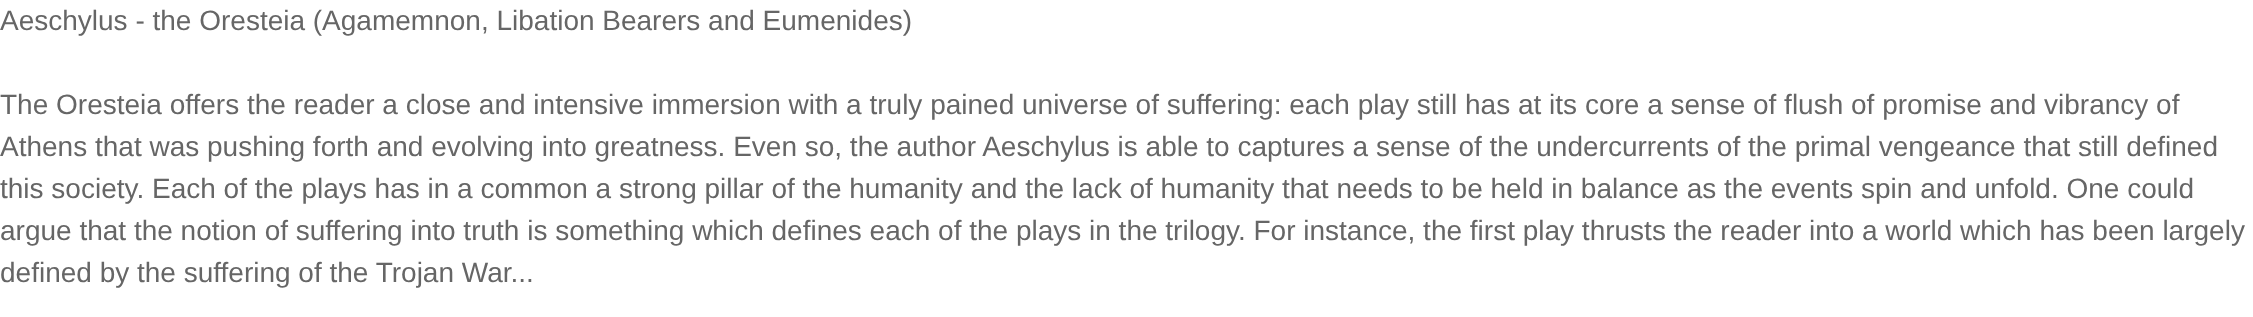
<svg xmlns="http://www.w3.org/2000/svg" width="2253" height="317">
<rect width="100%" height="100%" fill="#fff"/>
<text x="0" y="30" style="font-family:Liberation Sans;font-size:28px;fill:#666">Aeschylus - the Oresteia (Agamemnon, Libation Bearers and Eumenides)</text>
<text x="0" y="114" style="font-family:Liberation Sans;font-size:28px;fill:#666">The Oresteia offers the reader a close and intensive immersion with a truly pained universe of suffering: each play still has at its core a sense of flush of promise and vibrancy of</text>
<text x="0" y="156" style="font-family:Liberation Sans;font-size:28px;fill:#666">Athens that was pushing forth and evolving into greatness. Even so, the author Aeschylus is able to captures a sense of the undercurrents of the primal vengeance that still defined</text>
<text x="0" y="198" style="font-family:Liberation Sans;font-size:28px;fill:#666">this society. Each of the plays has in a common a strong pillar of the humanity and the lack of humanity that needs to be held in balance as the events spin and unfold. One could</text>
<text x="0" y="240" style="font-family:Liberation Sans;font-size:28px;fill:#666">argue that the notion of suffering into truth is something which defines each of the plays in the trilogy. For instance, the first play thrusts the reader into a world which has been largely</text>
<text x="0" y="282" style="font-family:Liberation Sans;font-size:28px;fill:#666">defined by the suffering of the Trojan War...</text>
</svg>
